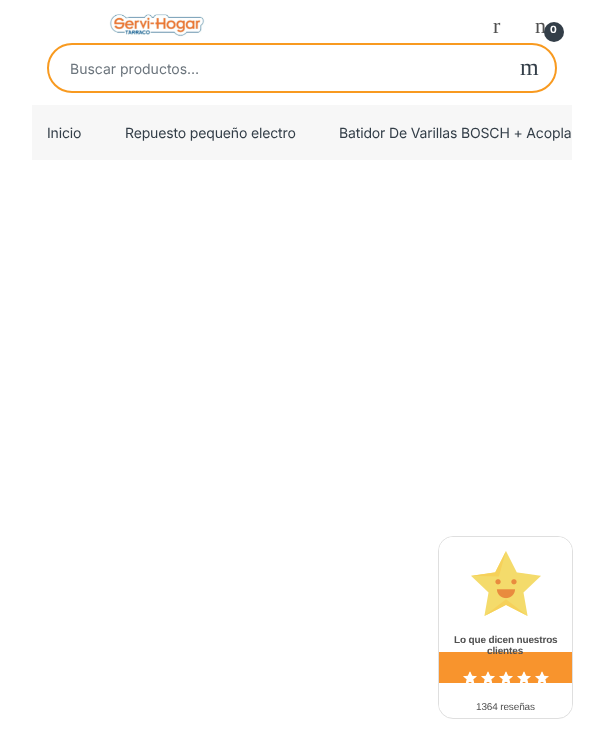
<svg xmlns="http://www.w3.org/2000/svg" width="603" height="749">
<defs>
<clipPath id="clip1"><rect x="439" y="537" width="133" height="181" rx="14"/></clipPath>
</defs>
<rect width="100%" height="100%" fill="#fff"/>
<image x="109" y="14" width="96" height="23" href="media/1.png"/>
<text x="493" y="33" style="font-family:Liberation Serif;font-size:22px;letter-spacing:-0.15px;fill:#515151">r</text>
<text x="535" y="33" style="font-family:Liberation Serif;font-size:22px;letter-spacing:-0.15px;fill:#515151">n</text>
<circle cx="554" cy="32" r="10" fill="#333e48"/>
<text x="550" y="33" style="font-family:Inter;font-size:10px;font-weight:bold;letter-spacing:-0.15px;fill:#fff">0</text>
<rect x="48" y="44" width="508" height="48" rx="24" fill="none" stroke="#f89a20" stroke-width="2"/>
<text x="70" y="74" style="font-family:Inter;font-size:14px;fill:#6c757d">Buscar productos…</text>
<text x="520" y="75" style="font-family:Liberation Serif;font-size:24px;fill:#333e48">m</text>
<rect x="32" y="105" width="540" height="55" fill="#f7f7f7"/>
<text x="47" y="138" style="font-family:Inter;font-size:14px;letter-spacing:-0.15px;fill:#333e48">Inicio</text>
<text x="125" y="138" style="font-family:Inter;font-size:14px;letter-spacing:-0.15px;fill:#333e48">Repuesto pequeño electro</text>
<text x="339" y="138" style="font-family:Inter;font-size:14px;letter-spacing:-0.15px;fill:#333e48">Batidor De Varillas BOSCH + Acopla</text>
<rect x="438.5" y="536.5" width="134" height="182" rx="14.5" fill="none" stroke="#dfdfdf"/>
<path d="M453 537h105c7.5 0 14 6.5 14 14v101h-133v-101c0-7.5 6.5-14 14-14z" fill="#fff"/>
<rect x="439" y="652" width="133" height="31" fill="#f8942d"/>
<g clip-path="url(#clip1)">
<rect x="439" y="683" width="133" height="27" fill="#fff"/>
</g>
<image x="471" y="551" width="70" height="65" href="media/2.png"/>
<text x="454" y="643" style="font-family:Liberation Sans;font-size:10px;font-weight:bold;letter-spacing:-0.15px;fill:#515151">Lo que dicen nuestros</text>
<text x="487" y="654" style="font-family:Liberation Sans;font-size:10px;font-weight:bold;letter-spacing:-0.15px;fill:#515151">clientes</text>
<image x="463" y="671" width="14" height="12" href="media/3.png"/>
<image x="463" y="671" width="14" height="12" href="media/4.png"/>
<image x="481" y="671" width="14" height="12" href="media/3.png"/>
<image x="481" y="671" width="14" height="12" href="media/4.png"/>
<image x="499" y="671" width="14" height="12" href="media/3.png"/>
<image x="499" y="671" width="14" height="12" href="media/4.png"/>
<image x="517" y="671" width="14" height="12" href="media/3.png"/>
<image x="517" y="671" width="14" height="12" href="media/4.png"/>
<image x="535" y="671" width="14" height="12" href="media/3.png"/>
<image x="535" y="671" width="11" height="12" href="media/5.png"/>
<text x="476" y="710" style="font-family:Liberation Sans;font-size:10px;letter-spacing:-0.15px;fill:#515151">1364 reseñas</text>
</svg>
